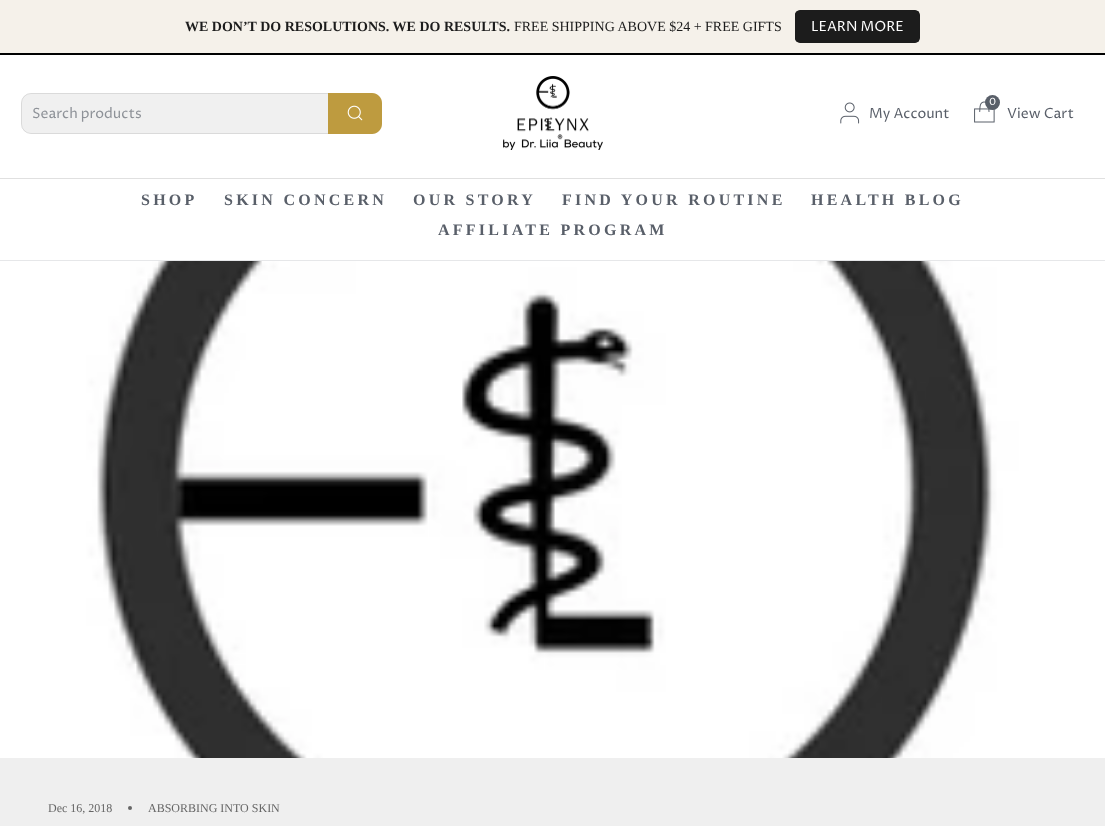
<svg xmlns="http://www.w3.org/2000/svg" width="1105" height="826">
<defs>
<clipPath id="clip1"><rect x="795" y="10" width="125" height="33" rx="5"/></clipPath>
</defs>
<rect width="100%" height="100%" fill="#efefef"/>
<rect width="1105" height="53" fill="#f5f1ea"/>
<text x="185" y="31" style="font-family:Liberation Serif;font-size:14px;font-weight:bold;fill:#1c1c1c">WE DON’T DO RESOLUTIONS. WE DO RESULTS.</text>
<text x="514" y="31" style="font-family:Liberation Serif;font-size:14px;fill:#1c1c1c">FREE SHIPPING ABOVE $24 + FREE GIFTS</text>
<g clip-path="url(#clip1)">
<rect x="795" y="11" width="124" height="31" fill="#1c1c1c"/>
</g>
<rect x="795.5" y="10.5" width="124" height="32" rx="4.5" fill="none" stroke="#1c1c1c"/>
<text x="811" y="31" style="font-family:Proza Libre;font-size:14px;fill:#fff">LEARN MORE</text>
<rect y="53" width="1105" height="2" fill="#000"/>
<rect y="55" width="1105" height="205" fill="#fff"/>
<rect y="260" width="1105" height="1" fill="#e6e7e9"/>
<rect x="21" y="93" width="360" height="41" rx="10" fill="#f0f0f0"/>
<rect x="21.5" y="93.5" width="359" height="40" rx="9.5" fill="none" stroke="#00000017"/>
<text x="32" y="118" style="font-family:Proza Libre;font-size:14px;fill:#8e9298">Search products</text>
<path d="M328 93h44c5.5 0 10 4.5 10 10v21c0 5.5-4.5 10-10 10h-44z" fill="#be9b3f"/>
<image x="347" y="105" width="16" height="16" href="media/1.png"/>
<image x="503" y="76" width="100" height="74" href="media/2.png"/>
<image x="840" y="102" width="20" height="22" href="media/3.png"/>
<text x="869" y="118" style="font-family:Proza Libre;font-size:14px;fill:#595f69">My Account</text>
<image x="974" y="101" width="21" height="22" href="media/4.png"/>
<circle cx="992.5" cy="102.5" r="7.5" fill="#595f69"/>
<text x="989" y="105" style="font-family:Proza Libre;font-size:10px;fill:#fff">0</text>
<text x="1007" y="118" style="font-family:Proza Libre;font-size:14px;fill:#595f69">View Cart</text>
<text x="141" y="205" style="font-family:Liberation Serif;font-size:16px;font-weight:bold;letter-spacing:3.25px;fill:#595f69">SHOP</text>
<text x="224" y="205" style="font-family:Liberation Serif;font-size:16px;font-weight:bold;letter-spacing:3.25px;fill:#595f69">SKIN CONCERN</text>
<text x="413" y="205" style="font-family:Liberation Serif;font-size:16px;font-weight:bold;letter-spacing:3.25px;fill:#595f69">OUR STORY</text>
<text x="562" y="205" style="font-family:Liberation Serif;font-size:16px;font-weight:bold;letter-spacing:3.25px;fill:#595f69">FIND YOUR ROUTINE</text>
<text x="811" y="205" style="font-family:Liberation Serif;font-size:16px;font-weight:bold;letter-spacing:3.25px;fill:#595f69">HEALTH BLOG</text>
<text x="438" y="235" style="font-family:Liberation Serif;font-size:16px;font-weight:bold;letter-spacing:3.25px;fill:#595f69">AFFILIATE PROGRAM</text>
<rect y="178" width="1105" height="1" fill="#e0e0e0"/>
<image x="0" y="261" width="1105" height="497" href="media/5.png"/>
<text x="48" y="812" style="font-family:Liberation Serif;font-size:12px;fill:#666">Dec 16, 2018</text>
<circle cx="130" cy="808" r="2" fill="#666"/>
<text x="148" y="812" style="font-family:Liberation Serif;font-size:12px;fill:#666">ABSORBING INTO SKIN</text>
</svg>
